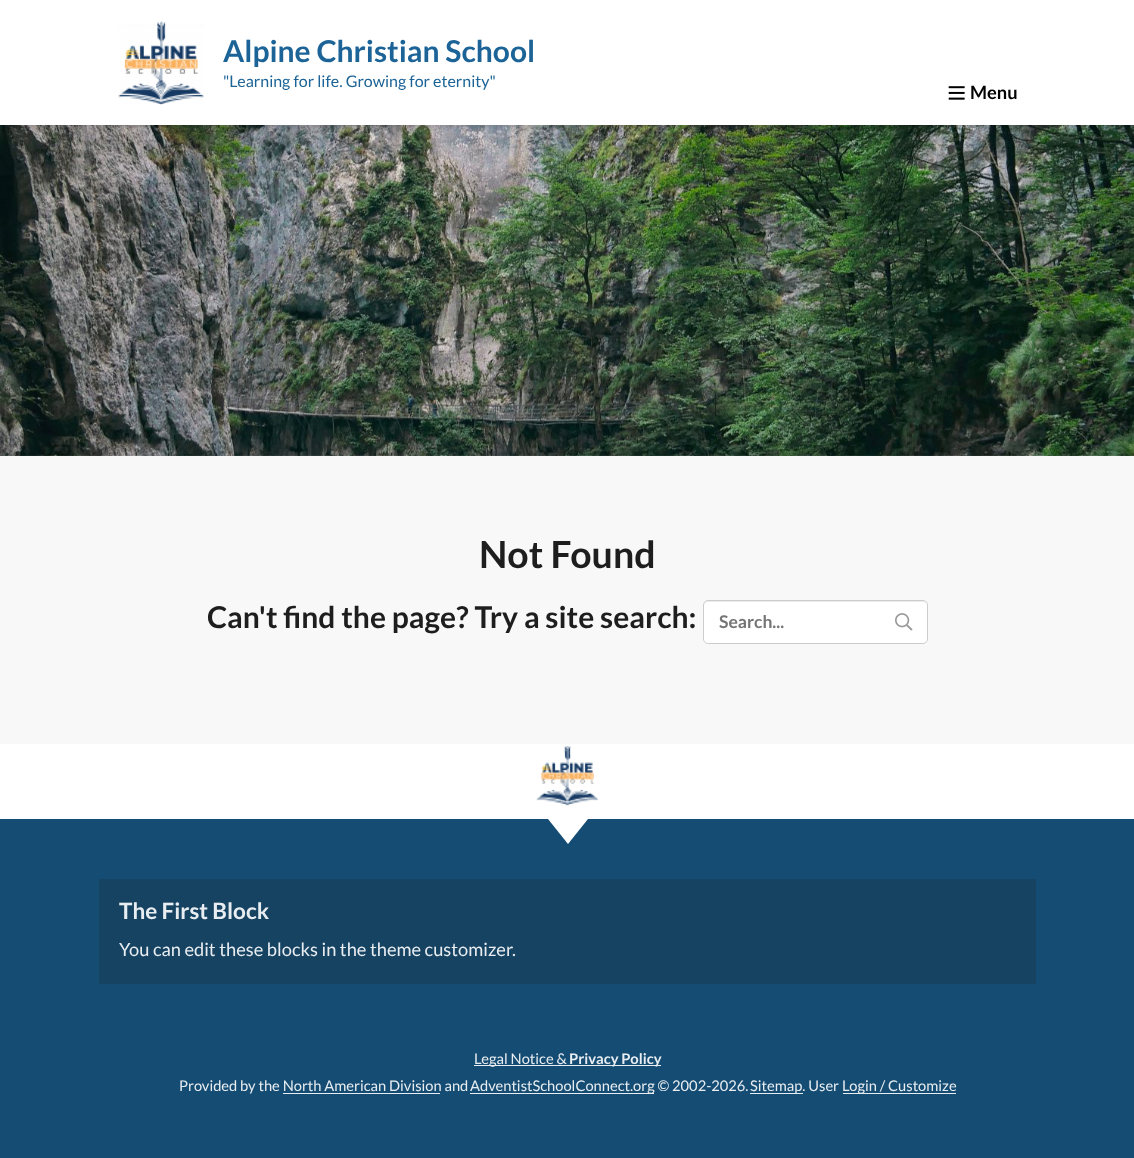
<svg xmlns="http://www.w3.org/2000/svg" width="1134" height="1158">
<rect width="100%" height="100%" fill="#f8f8f8"/>
<image x="0" y="125" width="1134" height="331" href="media/3.png"/>
<rect width="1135" height="125" fill="#00000033" filter="blur(3px)"/>
<rect width="1134" height="125" fill="#fff"/>
<image x="118" y="21" width="86" height="84" href="media/1.png"/>
<text x="223" y="62" style="font-family:Lato;font-size:30px;font-weight:bold;fill:#1c6497">Alpine Christian School</text>
<text x="223" y="87" style="font-family:Lato;font-size:16px;fill:#1c6497">"Learning for life. Growing for eternity"</text>
<image x="948" y="86" width="17" height="14" href="media/2.png"/>
<text x="970" y="99" style="font-family:Lato;font-size:18.3px;font-weight:bold;fill:#000">Menu</text>
<text x="479" y="568" style="font-family:Lato;font-size:37.5px;font-weight:bold;fill:#1e1e1e">Not Found</text>
<text x="207" y="628" style="font-family:Lato;font-size:30px;font-weight:bold;fill:#1e1e1e">Can't find the page? Try a site search:</text>
<rect x="703" y="600" width="225" height="44" rx="5" fill="#fff"/>
<path d="M708 602h214c3 0 4 2 4 4c0-3-1-5-4-5h-214c-3 0-4 2-4 5c0-2 1-4 4-4z" fill="#ebebeb"/>
<rect x="703.5" y="600.5" width="224" height="43" rx="4.5" fill="none" stroke="#ccc"/>
<text x="719" y="628" style="font-family:Lato;font-size:17.5px;font-weight:bold;fill:#757575">Search...</text>
<image x="895" y="613" width="18" height="18" href="media/4.png"/>
<rect y="744" width="1134" height="75" fill="#fff"/>
<image x="536" y="746" width="63" height="60" href="media/5.png"/>
<rect y="819" width="1134" height="339" fill="#154c73"/>
<path d="M548 819h40l-20 25z" fill="#fff"/>
<rect x="99" y="879" width="937" height="105" fill="#174362"/>
<text x="119" y="919" style="font-family:Lato;font-size:22.5px;font-weight:bold;fill:#e8edf1">The First Block</text>
<text x="119" y="956" style="font-family:Lato;font-size:18.3px;fill:#e8edf1">You can edit these blocks in the theme customizer.</text>
<rect x="474" y="1065" width="187" height="1" fill="#e8edf1"/>
<text x="474" y="1064" style="font-family:Lato;font-size:14.7px;fill:#e8edf1">Legal Notice &amp;</text>
<text x="569" y="1064" style="font-family:Lato;font-size:14.7px;font-weight:bold;fill:#e8edf1">Privacy Policy</text>
<text x="179" y="1091" style="font-family:Lato;font-size:14.7px;fill:#e8edf1">Provided by the North American Division and</text>
<rect x="283" y="1093" width="157" height="1" fill="#e8edf1"/>
<rect x="470" y="1093" width="184" height="1" fill="#e8edf1"/>
<text x="470" y="1091" style="font-family:Lato;font-size:14.7px;fill:#e8edf1">AdventistSchoolConnect.org © 2002-2026.</text>
<rect x="750" y="1093" width="53" height="1" fill="#e8edf1"/>
<text x="750" y="1091" style="font-family:Lato;font-size:14.7px;fill:#e8edf1">Sitemap. User</text>
<rect x="843" y="1093" width="113" height="1" fill="#e8edf1"/>
<text x="842" y="1091" style="font-family:Lato;font-size:14.7px;fill:#e8edf1">Login / Customize</text>
</svg>
